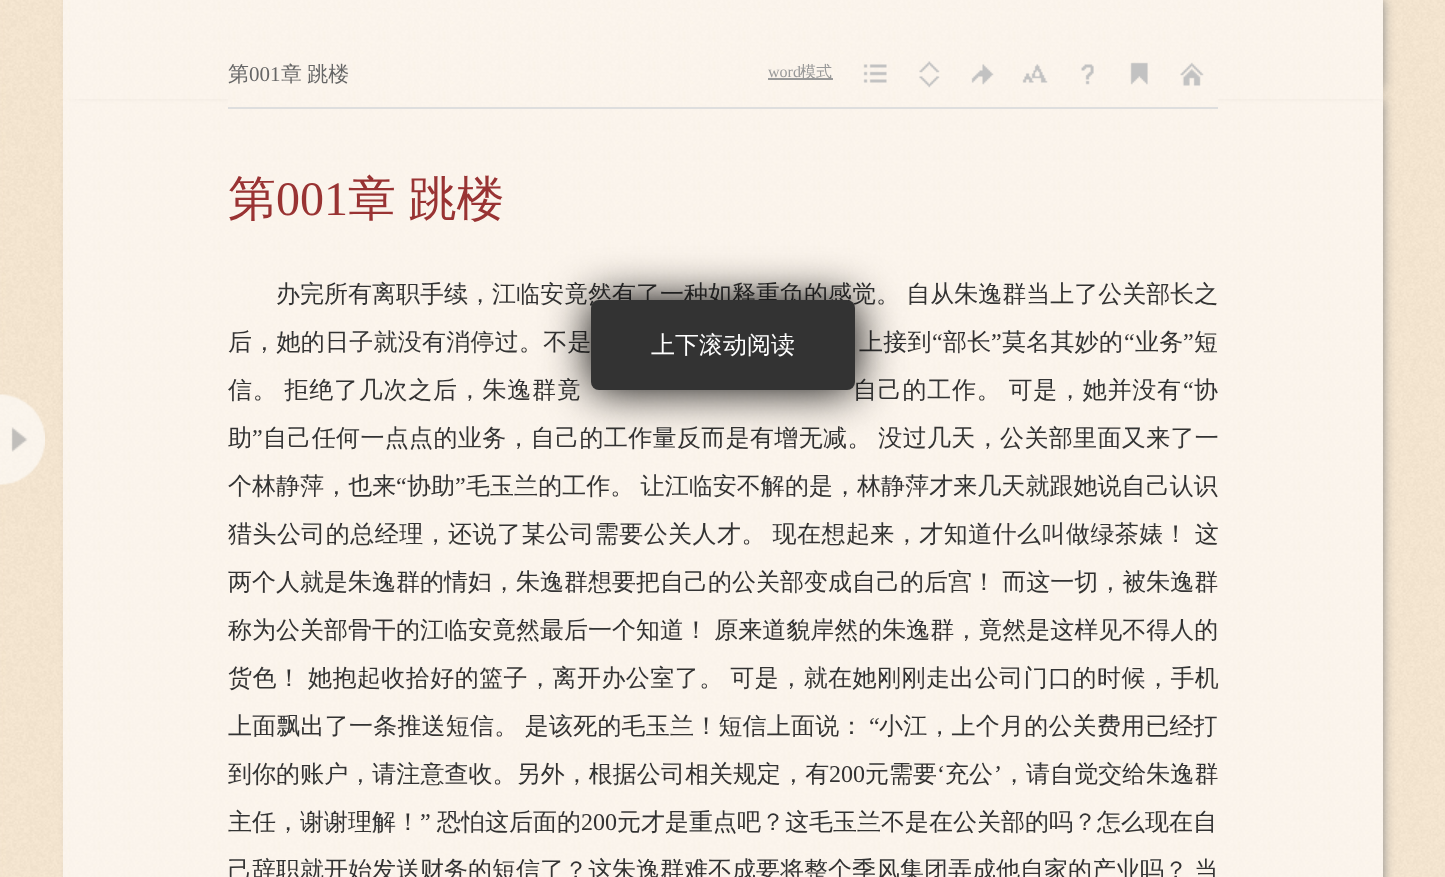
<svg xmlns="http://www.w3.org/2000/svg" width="1445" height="877">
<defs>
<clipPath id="clip1"><path d="M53 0h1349v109h-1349zm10 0h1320v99h-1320z" clip-rule="evenodd"/></clipPath>
</defs>
<rect width="100%" height="100%" fill="#fff"/>
<image x="0" y="0" width="1445" height="877" href="media/1.png"/>
<rect x="72" y="99" width="1311" height="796" fill="#838383" filter="blur(6px)"/>
<image x="63" y="90" width="1320" height="787" href="media/12.png"/>
<g clip-path="url(#clip1)">
<rect x="72" width="1311" height="90" fill="#838383" filter="blur(6px)"/>
</g>
<image x="63" y="0" width="1320" height="90" href="media/11.png"/>
<image x="228" y="8" width="990" height="97" href="media/2.png"/>
<rect x="228" y="107" width="990" height="2" fill="#dedede"/>
<text x="228" y="81" style="font-family:WenQuanYi Zen Hei;font-size:21px;font-weight:500;fill:#666">第</text>
<text x="249" y="81" style="font-family:Liberation Serif;font-size:21px;fill:#666">001</text>
<text x="281" y="81" word-spacing="-1" style="font-family:WenQuanYi Zen Hei;font-size:21px;font-weight:500;fill:#666">章 跳楼</text>
<text x="768" y="77" style="font-family:Liberation Serif;font-size:16px;fill:#999">word</text>
<rect x="768" y="78" width="65" height="2" fill="#999"/>
<text x="800" y="77" style="font-family:WenQuanYi Zen Hei;font-size:16px;font-weight:500;fill:#999">模式</text>
<image x="863" y="64" width="24" height="19" href="media/3.png"/>
<image x="919" y="61" width="21" height="27" href="media/4.png"/>
<image x="971" y="64" width="23" height="21" href="media/5.png"/>
<image x="1022" y="64" width="26" height="19" href="media/6.png"/>
<image x="1081" y="64" width="13" height="21" href="media/7.png"/>
<image x="1130" y="62" width="18" height="23" href="media/8.png"/>
<image x="1180" y="62" width="24" height="24" href="media/9.png"/>
<image x="0" y="394" width="45" height="91" href="media/10.png"/>
<text x="228" y="215" style="font-family:WenQuanYi Zen Hei;font-size:48px;font-weight:500;fill:#933">第</text>
<text x="276" y="215" style="font-family:Liberation Serif;font-size:48px;fill:#933">001</text>
<text x="348" y="215" word-spacing="-2" style="font-family:WenQuanYi Zen Hei;font-size:48px;font-weight:500;fill:#933">章 跳楼</text>
<text x="276" y="302" word-spacing="-1" style="font-family:WenQuanYi Zen Hei;font-size:24px;font-weight:500;fill:#333">办完所有离职手续，江临安竟然有了一种如释重负的感觉。 自从朱逸群当上了公关部长之</text>
<text x="228" y="350" style="font-family:WenQuanYi Zen Hei;font-size:24px;font-weight:500;letter-spacing:0.25px;fill:#333">后，她的日子就没有消停过。不是</text>
<text x="859" y="350" style="font-family:WenQuanYi Zen Hei;font-size:24px;font-weight:500;letter-spacing:0.25px;fill:#333">上接到</text>
<text x="932" y="350" style="font-family:Liberation Serif;font-size:24px;letter-spacing:0.25px;fill:#333">“</text>
<text x="943" y="350" style="font-family:WenQuanYi Zen Hei;font-size:24px;font-weight:500;letter-spacing:0.25px;fill:#333">部长</text>
<text x="991" y="350" style="font-family:Liberation Serif;font-size:24px;letter-spacing:0.25px;fill:#333">”</text>
<text x="1002" y="350" style="font-family:WenQuanYi Zen Hei;font-size:24px;font-weight:500;letter-spacing:0.25px;fill:#333">莫名其妙的</text>
<text x="1124" y="350" style="font-family:Liberation Serif;font-size:24px;letter-spacing:0.25px;fill:#333">“</text>
<text x="1135" y="350" style="font-family:WenQuanYi Zen Hei;font-size:24px;font-weight:500;letter-spacing:0.25px;fill:#333">业务</text>
<text x="1183" y="350" style="font-family:Liberation Serif;font-size:24px;letter-spacing:0.25px;fill:#333">”</text>
<text x="1194" y="350" style="font-family:WenQuanYi Zen Hei;font-size:24px;font-weight:500;letter-spacing:0.25px;fill:#333">短</text>
<text x="228" y="398" word-spacing="-1" style="font-family:WenQuanYi Zen Hei;font-size:24px;font-weight:500;letter-spacing:0.75px;fill:#333">信。 拒绝了几次之后，朱逸群竟</text>
<text x="853" y="398" word-spacing="-1" style="font-family:WenQuanYi Zen Hei;font-size:24px;font-weight:500;letter-spacing:0.75px;fill:#333">自己的工作。 可是，她并没有</text>
<text x="1183" y="398" style="font-family:Liberation Serif;font-size:24px;letter-spacing:0.75px;fill:#333">“</text>
<text x="1194" y="398" style="font-family:WenQuanYi Zen Hei;font-size:24px;font-weight:500;letter-spacing:0.75px;fill:#333">协</text>
<text x="228" y="446" style="font-family:WenQuanYi Zen Hei;font-size:24px;font-weight:500;letter-spacing:0.35px;fill:#333">助</text>
<text x="252" y="446" style="font-family:Liberation Serif;font-size:24px;letter-spacing:0.35px;fill:#333">”</text>
<text x="263" y="446" word-spacing="-1" style="font-family:WenQuanYi Zen Hei;font-size:24px;font-weight:500;letter-spacing:0.35px;fill:#333">自己任何一点点的业务，自己的工作量反而是有增无减。 没过几天，公关部里面又来了一</text>
<text x="228" y="494" style="font-family:WenQuanYi Zen Hei;font-size:24px;font-weight:500;letter-spacing:0.05px;fill:#333">个林静萍，也来</text>
<text x="396" y="494" style="font-family:Liberation Serif;font-size:24px;letter-spacing:0.05px;fill:#333">“</text>
<text x="407" y="494" style="font-family:WenQuanYi Zen Hei;font-size:24px;font-weight:500;letter-spacing:0.05px;fill:#333">协助</text>
<text x="455" y="494" style="font-family:Liberation Serif;font-size:24px;letter-spacing:0.05px;fill:#333">”</text>
<text x="466" y="494" word-spacing="-1" style="font-family:WenQuanYi Zen Hei;font-size:24px;font-weight:500;letter-spacing:0.05px;fill:#333">毛玉兰的工作。 让江临安不解的是，林静萍才来几天就跟她说自己认识</text>
<text x="228" y="542" word-spacing="-1" style="font-family:WenQuanYi Zen Hei;font-size:24px;font-weight:500;letter-spacing:0.45px;fill:#333">猎头公司的总经理，还说了某公司需要公关人才。 现在想起来，才知道什么叫做绿茶婊！ 这</text>
<text x="228" y="590" word-spacing="-1" style="font-family:WenQuanYi Zen Hei;font-size:24px;font-weight:500;fill:#333">两个人就是朱逸群的情妇，朱逸群想要把自己的公关部变成自己的后宫！ 而这一切，被朱逸群</text>
<text x="228" y="638" word-spacing="-1" style="font-family:WenQuanYi Zen Hei;font-size:24px;font-weight:500;fill:#333">称为公关部骨干的江临安竟然最后一个知道！ 原来道貌岸然的朱逸群，竟然是这样见不得人的</text>
<text x="228" y="686" word-spacing="-1" style="font-family:WenQuanYi Zen Hei;font-size:24px;font-weight:500;letter-spacing:0.45px;fill:#333">货色！ 她抱起收拾好的篮子，离开办公室了。 可是，就在她刚刚走出公司门口的时候，手机</text>
<text x="228" y="734" word-spacing="-1" style="font-family:WenQuanYi Zen Hei;font-size:24px;font-weight:500;letter-spacing:0.2px;fill:#333">上面飘出了一条推送短信。 是该死的毛玉兰！短信上面说：</text>
<text x="869" y="734" style="font-family:Liberation Serif;font-size:24px;letter-spacing:0.2px;fill:#333">“</text>
<text x="879" y="734" style="font-family:WenQuanYi Zen Hei;font-size:24px;font-weight:500;letter-spacing:0.2px;fill:#333">小江，上个月的公关费用已经打</text>
<text x="228" y="782" style="font-family:WenQuanYi Zen Hei;font-size:24px;font-weight:500;letter-spacing:0.05px;fill:#333">到你的账户，请注意查收。另外，根据公司相关规定，有</text>
<text x="829" y="782" style="font-family:Liberation Serif;font-size:24px;letter-spacing:0.05px;fill:#333">200</text>
<text x="865" y="782" style="font-family:WenQuanYi Zen Hei;font-size:24px;font-weight:500;letter-spacing:0.05px;fill:#333">元需要</text>
<text x="937" y="782" style="font-family:Liberation Serif;font-size:24px;letter-spacing:0.05px;fill:#333">‘</text>
<text x="945" y="782" style="font-family:WenQuanYi Zen Hei;font-size:24px;font-weight:500;letter-spacing:0.05px;fill:#333">充公</text>
<text x="994" y="782" style="font-family:Liberation Serif;font-size:24px;letter-spacing:0.05px;fill:#333">’</text>
<text x="1002" y="782" style="font-family:WenQuanYi Zen Hei;font-size:24px;font-weight:500;letter-spacing:0.05px;fill:#333">，请自觉交给朱逸群</text>
<text x="228" y="830" style="font-family:WenQuanYi Zen Hei;font-size:24px;font-weight:500;fill:#333">主任，谢谢理解！</text>
<text x="420" y="830" style="font-family:Liberation Serif;font-size:24px;fill:#333">”</text>
<text x="437" y="830" style="font-family:WenQuanYi Zen Hei;font-size:24px;font-weight:500;fill:#333">恐怕这后面的</text>
<text x="581" y="830" style="font-family:Liberation Serif;font-size:24px;fill:#333">200</text>
<text x="617" y="830" style="font-family:WenQuanYi Zen Hei;font-size:24px;font-weight:500;fill:#333">元才是重点吧？这毛玉兰不是在公关部的吗？怎么现在自</text>
<text x="228" y="878" word-spacing="-1" style="font-family:WenQuanYi Zen Hei;font-size:24px;font-weight:500;fill:#333">己辞职就开始发送财务的短信了？这朱逸群难不成要将整个季风集团弄成他自家的产业吗？ 当</text>
<rect x="591" y="300" width="264" height="90" rx="8" fill="#000" filter="blur(22.5px)"/>
<rect x="591" y="300" width="264" height="90" rx="8" fill="#333"/>
<text x="651" y="353" style="font-family:WenQuanYi Zen Hei;font-size:24px;font-weight:500;fill:#fff">上下滚动阅读</text>
</svg>
